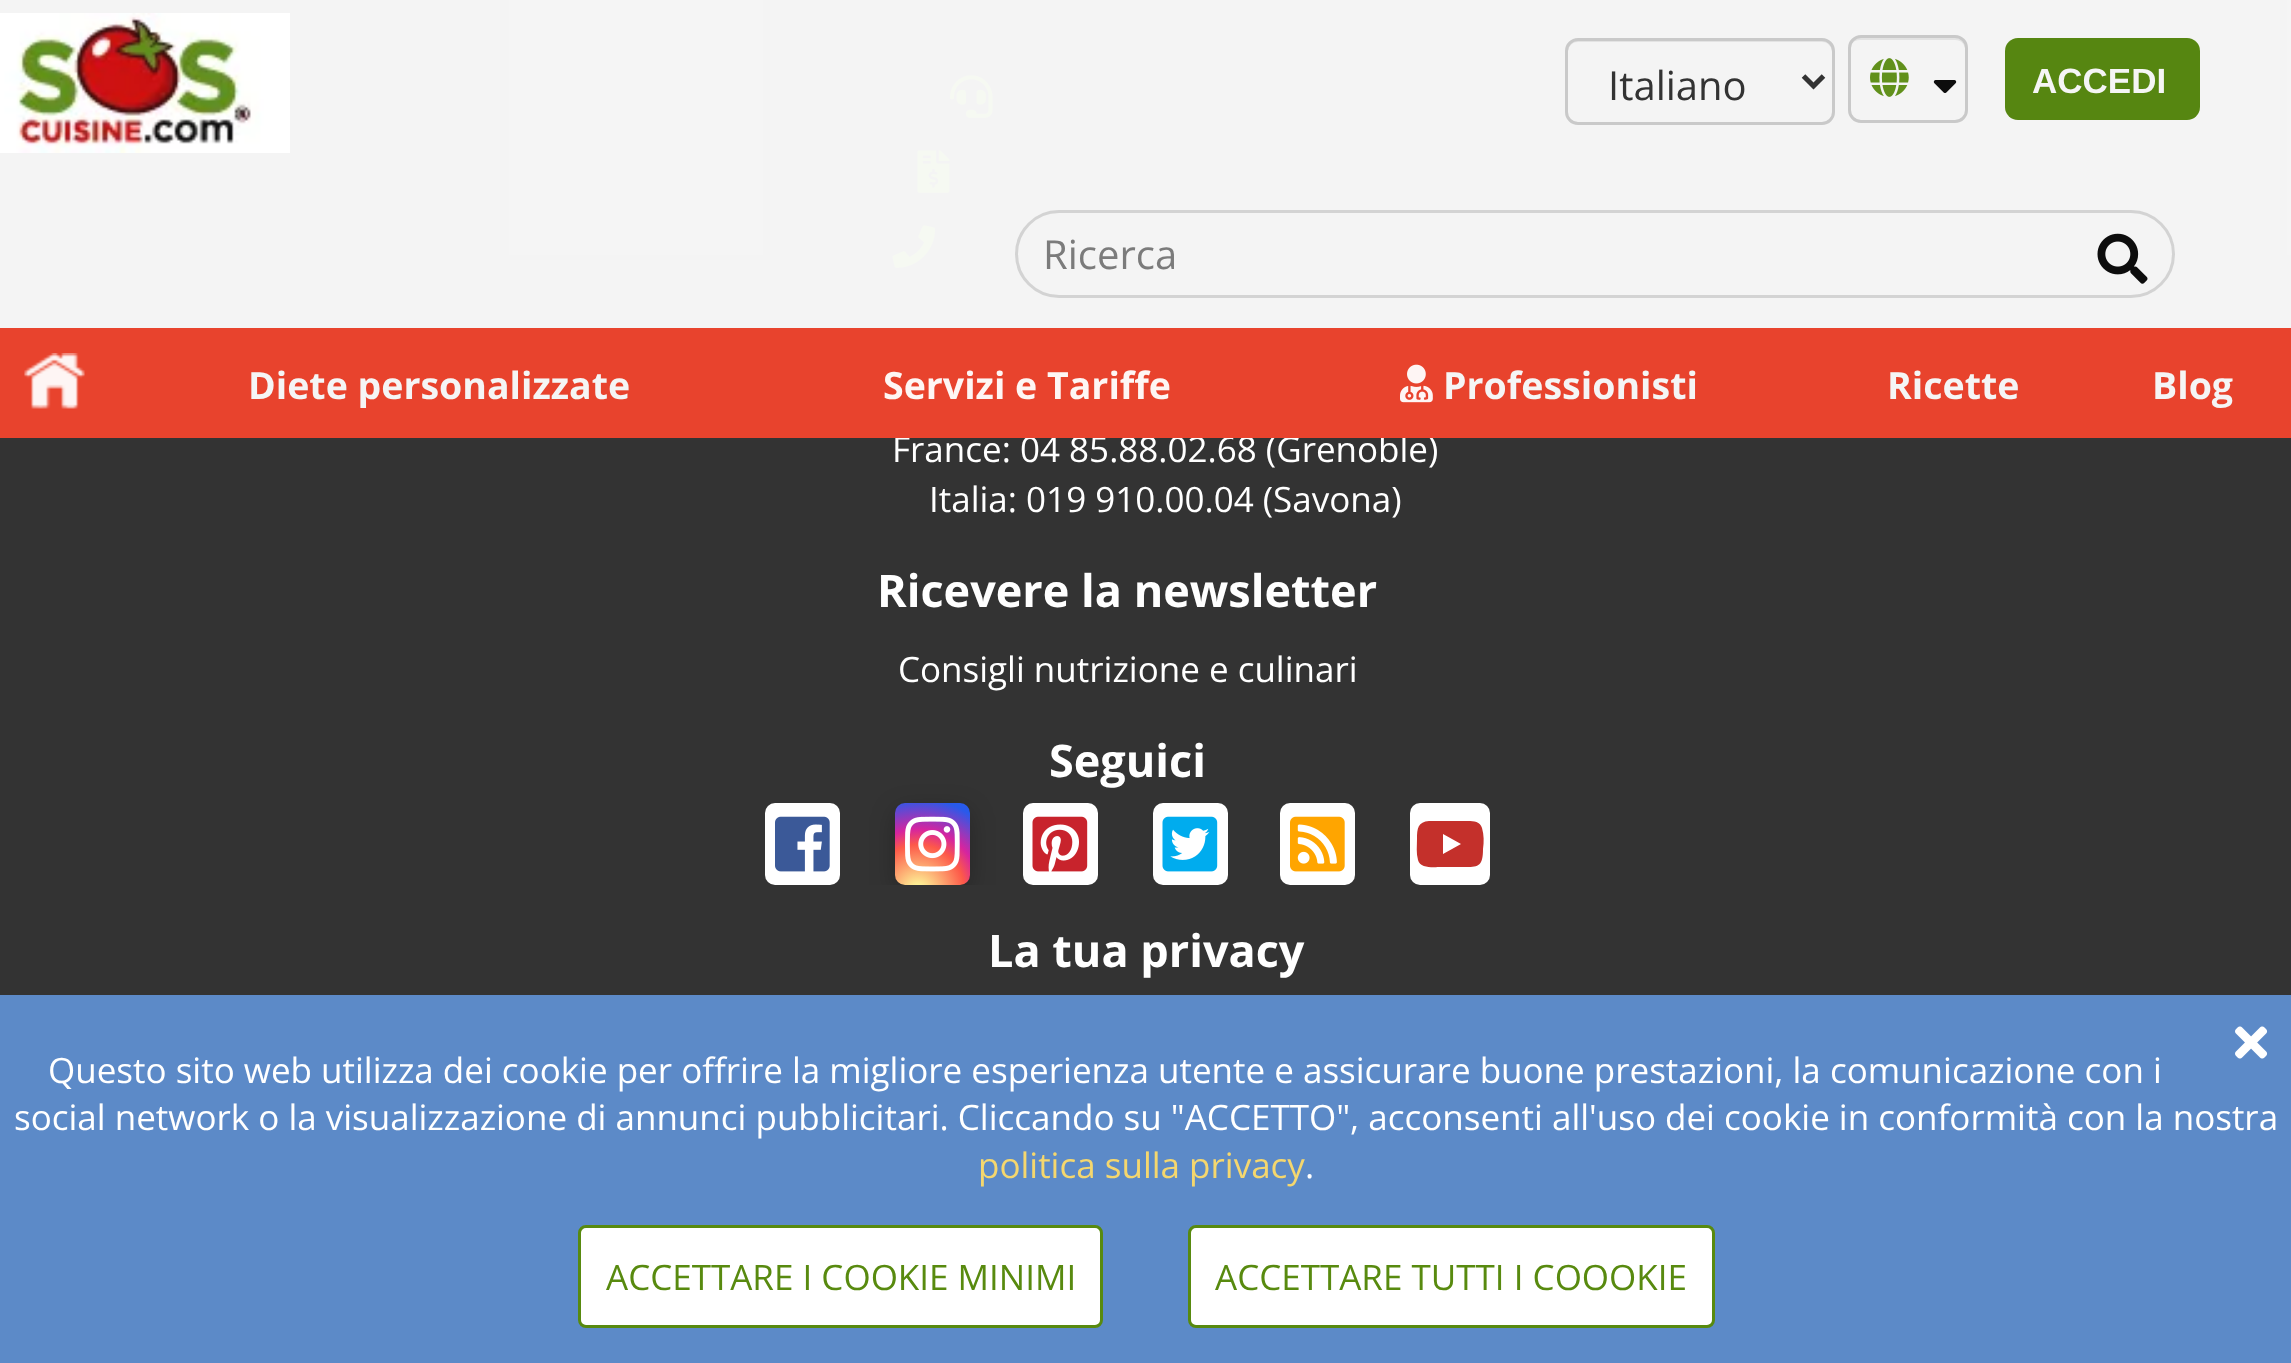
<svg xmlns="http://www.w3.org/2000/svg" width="2291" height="1363">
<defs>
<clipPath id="clip1"><rect x="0" y="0" width="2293" height="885"/></clipPath>
<radialGradient id="g1" gradientUnits="userSpaceOnUse" cx="918" cy="891" r="103"><stop offset="0" stop-color="#fdf497"/><stop offset="0.05" stop-color="#fdf497"/><stop offset="0.45" stop-color="#fd5949"/><stop offset="0.6" stop-color="#d6249f"/><stop offset="0.9" stop-color="#285aeb"/></radialGradient>
</defs>
<rect width="100%" height="100%" fill="#333"/>
<image x="950" y="75" width="43" height="43" href="media/8.png"/>
<image x="917" y="150" width="33" height="43" href="media/9.png"/>
<image x="892" y="225" width="43" height="43" href="media/10.png"/>
<text x="892" y="462" style="font-family:Open Sans;font-size:35px;fill:#fff">France: 04 85.88.02.68 (Grenoble)</text>
<rect width="2291" height="438" fill="#fffffff2"/>
<image x="0" y="13" width="290" height="140" href="media/1.png"/>
<path d="M1578 42h244c6 0 10 5 10 10v63v3c0-1 1-3 1-5v-63c0-6-4-10-10-10h-245c-6 0-10 4-10 10v2c0-5 4-10 10-10z" fill="#e3e3e3"/>
<rect x="1566.5" y="39.5" width="267" height="84" rx="11.5" fill="none" stroke="#c9c9c9" stroke-width="3"/>
<path d="M1803.5 76l10 10l10-10" fill="none" stroke="#333" stroke-width="5"/>
<text x="1608" y="100" style="font-family:Open Sans;font-size:40px;fill:#333">Italiano</text>
<path d="M1860 40h95c6 0 10 4 10 10c0-16-14-12-26-12h-63c-12 0-26-4-26 12c0-6 4-10 10-10z" fill="#e3e3e3"/>
<rect x="1849.5" y="36.5" width="117" height="85" rx="11.5" fill="none" stroke="#c9c9c9" stroke-width="3"/>
<image x="1870" y="58" width="39" height="39" href="media/2.png"/>
<image x="1933" y="80" width="24" height="13" href="media/3.png"/>
<rect x="2005" y="38" width="195" height="82" rx="13" fill="#568611"/>
<text x="2032" y="93" style="font-family:Liberation Sans;font-size:35px;font-weight:bold;fill:#f5f5f5">ACCEDI</text>
<rect x="1016.5" y="211.5" width="1157" height="85" rx="42.5" fill="none" stroke="#d1d1d1f2" stroke-width="3"/>
<text x="1043" y="269" style="font-family:Open Sans;font-size:40px;fill:#7b7b7b">Ricerca</text>
<image x="2097" y="233" width="51" height="51" href="media/4.png"/>
<rect y="328" width="2291" height="110" fill="#e73922f2"/>
<image x="24" y="353" width="61" height="56" href="media/5.png"/>
<text x="248" y="399" style="font-family:Open Sans;font-size:37.5px;font-weight:bold;fill:#f5f5f5">Diete personalizzate</text>
<text x="883" y="399" style="font-family:Open Sans;font-size:37.5px;font-weight:bold;fill:#fef6f4">Servizi e Tariffe</text>
<image x="1400" y="364" width="33" height="39" href="media/6.png"/>
<text x="1443" y="399" style="font-family:Open Sans;font-size:37.5px;font-weight:bold;fill:#f5f5f5">Professionisti</text>
<text x="1887" y="399" style="font-family:Open Sans;font-size:37.5px;font-weight:bold;fill:#f5f5f5">Ricette</text>
<text x="2152" y="399" style="font-family:Open Sans;font-size:37.5px;font-weight:bold;fill:#f5f5f5">Blog</text>
<rect y="995" width="2291" height="368" fill="#5c8ac8"/>
<image x="2235" y="1026" width="33" height="33" href="media/7.png"/>
<text x="48" y="1083" style="font-family:Open Sans;font-size:35px;fill:#fff">Questo sito web utilizza dei cookie per offrire la migliore esperienza utente e assicurare buone prestazioni, la comunicazione con i</text>
<text x="14" y="1130" style="font-family:Open Sans;font-size:35px;fill:#fff">social network o la visualizzazione di annunci pubblicitari. Cliccando su "ACCETTO", acconsenti all'uso dei cookie in conformità con la nostra</text>
<text x="978" y="1178" style="font-family:Open Sans;font-size:35px;fill:#f5d76e">politica sulla privacy</text>
<text x="1305" y="1178" style="font-family:Open Sans;font-size:35px;fill:#fff">.</text>
<rect x="579.5" y="1226.5" width="522" height="100" rx="6.5" fill="#fff" stroke="#588a0f" stroke-width="3"/>
<text x="606" y="1290" style="font-family:Open Sans;font-size:35px;fill:#588a0f">ACCETTARE I COOKIE MINIMI</text>
<rect x="1189.5" y="1226.5" width="524" height="100" rx="6.5" fill="#fff" stroke="#588a0f" stroke-width="3"/>
<text x="1215" y="1290" style="font-family:Open Sans;font-size:35px;fill:#588a0f">ACCETTARE TUTTI I COOOKIE</text>
<text x="929" y="512" style="font-family:Open Sans;font-size:35px;fill:#fff">Italia: 019 910.00.04 (Savona)</text>
<text x="877" y="607" style="font-family:Open Sans;font-size:45px;font-weight:bold;fill:#fff">Ricevere la newsletter</text>
<text x="898" y="682" style="font-family:Open Sans;font-size:35px;fill:#fff">Consigli nutrizione e culinari</text>
<text x="1049" y="777" style="font-family:Open Sans;font-size:45px;font-weight:bold;fill:#fff">Seguici</text>
<rect x="765" y="803" width="75" height="82" rx="10" fill="#fff"/>
<image x="775" y="816" width="55" height="56" href="media/11.png"/>
<g clip-path="url(#clip1)">
<rect x="895" y="810" width="75" height="83" rx="10" fill="#00000040" filter="blur(12.5px)"/>
</g>
<rect x="895" y="803" width="75" height="82" rx="10" fill="url(#g1)"/>
<image x="905" y="816" width="55" height="56" href="media/12.png"/>
<rect x="1023" y="803" width="75" height="82" rx="10" fill="#fff"/>
<image x="1032" y="816" width="56" height="56" href="media/13.png"/>
<rect x="1153" y="803" width="75" height="82" rx="10" fill="#fff"/>
<image x="1162" y="816" width="56" height="56" href="media/14.png"/>
<rect x="1280" y="803" width="75" height="82" rx="10" fill="#fff"/>
<image x="1290" y="816" width="55" height="56" href="media/15.png"/>
<rect x="1410" y="803" width="80" height="82" rx="10" fill="#fff"/>
<path d="M1482 828c-2-8-12-7-18-7h-19h-16c-11 1-12 7-12 18c0 7-1 14 1 21c2 9 17 7 23 7h17c19 0 25 2 25-18c1-7 1-14-1-21zm-39 26v-20l18 10z" fill="#c4302b"/>
<text x="988" y="967" style="font-family:Open Sans;font-size:45px;font-weight:bold;fill:#fff">La tua privacy</text>
</svg>
